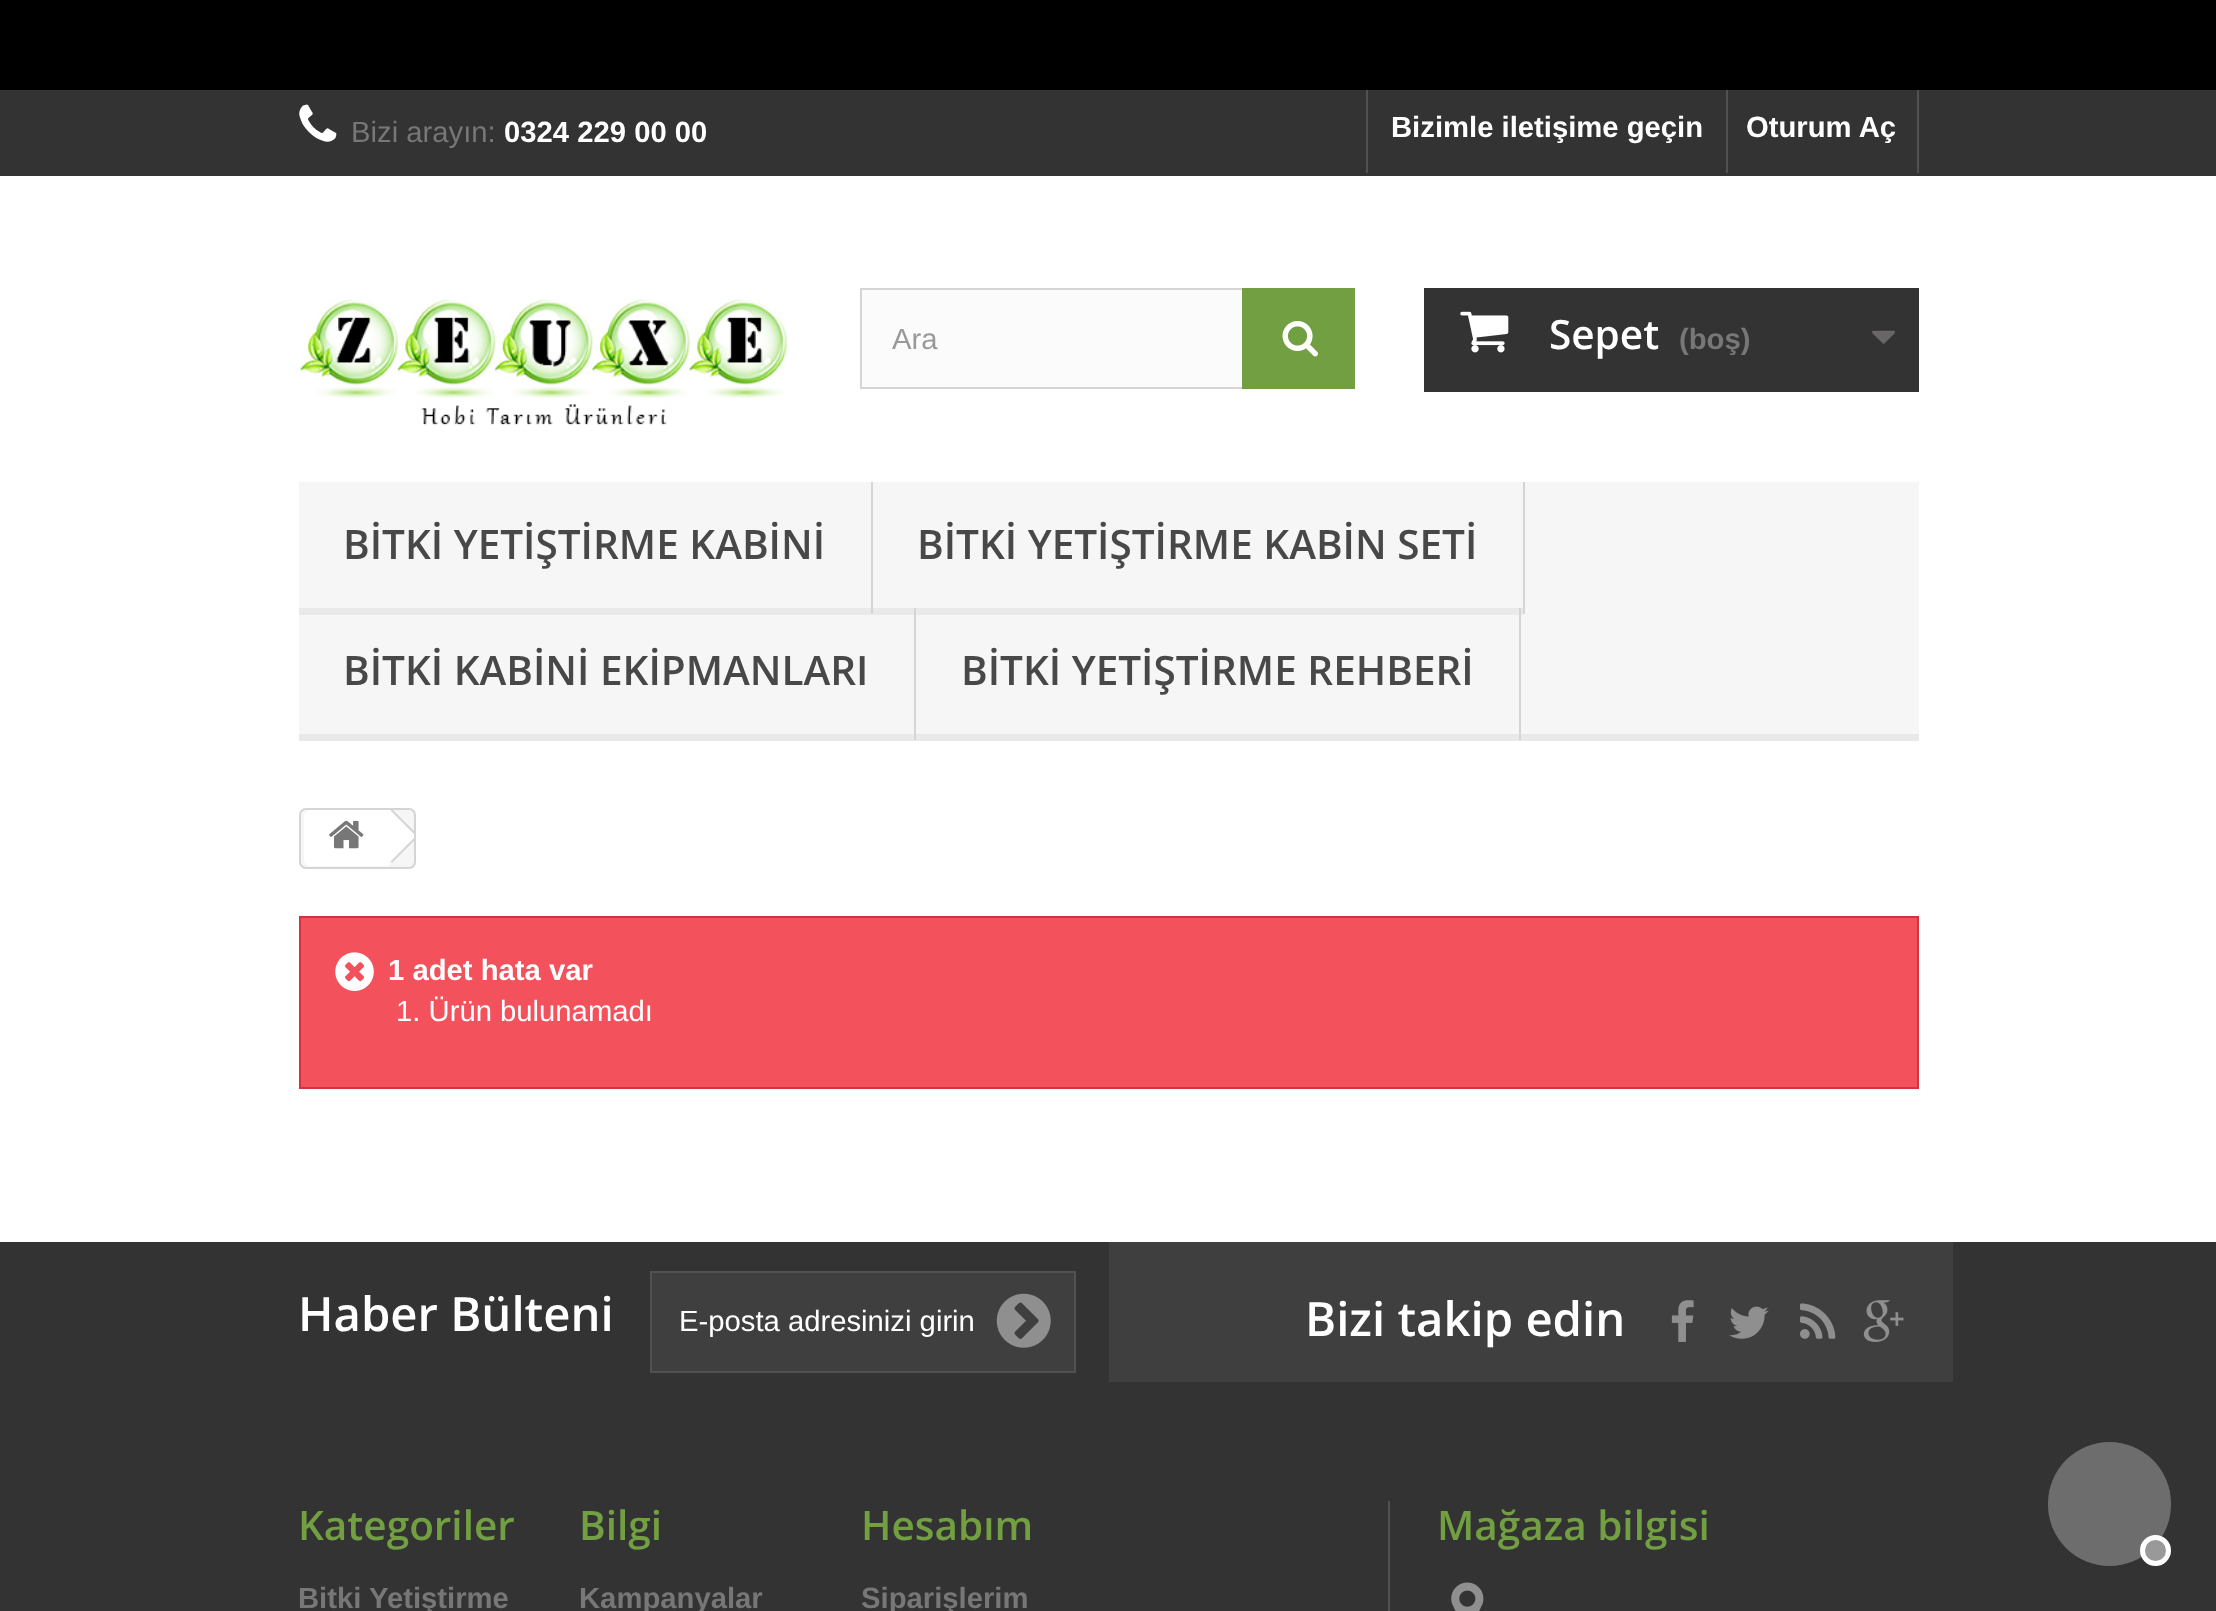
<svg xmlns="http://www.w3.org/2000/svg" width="2216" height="1611">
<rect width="100%" height="100%" fill="#333"/>
<rect y="176" width="2216" height="1066" fill="#fff"/>
<rect width="2216" height="90" fill="#000"/>
<image x="299" y="104" width="38" height="38" href="media/1.png"/>
<text x="351" y="142" style="font-family:Liberation Sans;font-size:29.25px;fill:#777">Bizi arayın:</text>
<text x="504" y="142" style="font-family:Liberation Sans;font-size:29.25px;font-weight:bold;fill:#fff">0324 229 00 00</text>
<rect x="1366" y="90" width="2" height="83" fill="#515151"/>
<text x="1391" y="137" style="font-family:Liberation Sans;font-size:29.25px;font-weight:bold;fill:#fff">Bizimle iletişime geçin</text>
<rect x="1917" y="90" width="2" height="83" fill="#515151"/>
<rect x="1726" y="90" width="2" height="83" fill="#515151"/>
<text x="1746" y="137" style="font-family:Liberation Sans;font-size:29.25px;font-weight:bold;fill:#fff">Oturum Aç</text>
<image x="300" y="299" width="487" height="126" href="media/2.png"/>
<rect x="862" y="290" width="380" height="97" fill="#fbfbfb"/>
<rect x="861" y="289" width="493" height="99" fill="none" stroke="#d6d4d4" stroke-width="2"/>
<text x="892" y="349" style="font-family:Liberation Sans;font-size:29.25px;fill:#999">Ara</text>
<rect x="1242" y="288" width="113" height="101" fill="#719f41"/>
<image x="1282" y="320" width="36" height="37" href="media/3.png"/>
<rect x="1424" y="288" width="495" height="104" fill="#333"/>
<image x="1460" y="311" width="49" height="42" href="media/4.png"/>
<text x="1549" y="349" style="font-family:Open Sans;font-size:40.5px;font-weight:600;fill:#fff">Sepet</text>
<text x="1679" y="349" style="font-family:Liberation Sans;font-size:29.25px;font-weight:bold;fill:#777">(boş)</text>
<image x="1872" y="330" width="23" height="14" href="media/5.png"/>
<rect x="299" y="482" width="1620" height="252" fill="#f6f6f6"/>
<rect x="299" y="734" width="1620" height="7" fill="#e9e9e9"/>
<rect x="871" y="482" width="2" height="132" fill="#d6d4d4"/>
<rect x="299" y="608" width="572" height="7" fill="#e9e9e9"/>
<text x="343" y="559" style="font-family:Open Sans;font-size:40.5px;font-weight:600;fill:#484848">BİTKİ YETİŞTİRME KABİNİ</text>
<rect x="1523" y="482" width="2" height="132" fill="#d6d4d4"/>
<rect x="873" y="608" width="650" height="7" fill="#e9e9e9"/>
<text x="917" y="559" style="font-family:Open Sans;font-size:40.5px;font-weight:600;fill:#484848">BİTKİ YETİŞTİRME KABİN SETİ</text>
<rect x="914" y="608" width="2" height="132" fill="#d6d4d4"/>
<text x="343" y="685" style="font-family:Open Sans;font-size:40.5px;font-weight:600;fill:#484848">BİTKİ KABİNİ EKİPMANLARI</text>
<rect x="1519" y="608" width="2" height="132" fill="#d6d4d4"/>
<text x="961" y="685" style="font-family:Open Sans;font-size:40.5px;font-weight:600;fill:#484848">BİTKİ YETİŞTİRME REHBERİ</text>
<rect x="300" y="809" width="115" height="59" rx="6" fill="#f6f6f6" stroke="#d6d4d4" stroke-width="2"/>
<path d="M311 810h78v56h-78c-4 0-7-3-7-7v-42c0-4 3-7 7-7z" fill="#fff"/>
<path d="M394 811l-1-1h-5l-1 1l-22 22c-2 2-2 5 0 6l22 23c2 1 5 1 7 0l20-21v-10z" fill="#fff"/>
<image x="329" y="820" width="35" height="29" href="media/6.png"/>
<path d="M414 834l-23.5-23.5l.5-.5h2l21 21zm0 4v3l-22 22l-1.5-1.5z" fill="#d6d4d4"/>
<rect x="300" y="917" width="1618" height="171" fill="#f3515c" stroke="#d4323d" stroke-width="2"/>
<image x="335" y="952" width="39" height="39" href="media/7.png"/>
<text x="388" y="980" style="font-family:Liberation Sans;font-size:29.25px;font-weight:bold;fill:#fff">1 adet hata var</text>
<text x="396" y="1021" style="font-family:Liberation Sans;font-size:29.25px;fill:#fff">1. Ürün bulunamadı</text>
<text x="298" y="1331" style="font-family:Open Sans;font-size:47.25px;font-weight:600;fill:#fff">Haber Bülteni</text>
<rect x="651" y="1272" width="424" height="100" fill="#3f3f3f" stroke="#515151" stroke-width="2"/>
<text x="679" y="1331" style="font-family:Liberation Sans;font-size:29.25px;fill:#fff">E-posta adresinizi girin</text>
<image x="996" y="1293" width="55" height="55" href="media/8.png"/>
<rect x="1109" y="1242" width="844" height="140" fill="#3f3f3f"/>
<text x="1305" y="1336" style="font-family:Open Sans;font-size:47.25px;font-weight:600;fill:#fff">Bizi takip edin</text>
<image x="1671" y="1300" width="23" height="42" href="media/9.png"/>
<image x="1729" y="1306" width="40" height="33" href="media/10.png"/>
<image x="1800" y="1303" width="36" height="36" href="media/11.png"/>
<image x="1863" y="1300" width="41" height="42" href="media/12.png"/>
<text x="298" y="1540" style="font-family:Open Sans;font-size:40.5px;font-weight:600;fill:#719f41">Kategoriler</text>
<text x="298" y="1608" style="font-family:Liberation Sans;font-size:29.25px;font-weight:bold;fill:#777">Bitki Yetiştirme</text>
<text x="579" y="1540" style="font-family:Open Sans;font-size:40.5px;font-weight:600;fill:#719f41">Bilgi</text>
<text x="579" y="1608" style="font-family:Liberation Sans;font-size:29.25px;font-weight:bold;fill:#777">Kampanyalar</text>
<text x="861" y="1540" style="font-family:Open Sans;font-size:40.5px;font-weight:600;fill:#719f41">Hesabım</text>
<text x="861" y="1608" style="font-family:Liberation Sans;font-size:29.25px;font-weight:bold;fill:#777">Siparişlerim</text>
<rect x="1388" y="1501" width="2" height="110" fill="#515151"/>
<text x="1437" y="1540" style="font-family:Open Sans;font-size:40.5px;font-weight:600;fill:#719f41">Mağaza bilgisi</text>
<image x="1451" y="1582" width="33" height="29" href="media/13.png"/>
<rect x="2048" y="1442" width="123" height="124" rx="61.5" fill="#4d4d4d"/>
<rect x="2048" y="1442" width="123" height="124" rx="61.5" fill="#99999940"/>
<rect x="2048" y="1442" width="123" height="124" rx="61.5" fill="#99999940"/>
<circle cx="2155.5" cy="1550.5" r="13" fill="#999" stroke="#fff" stroke-width="5"/>
</svg>
